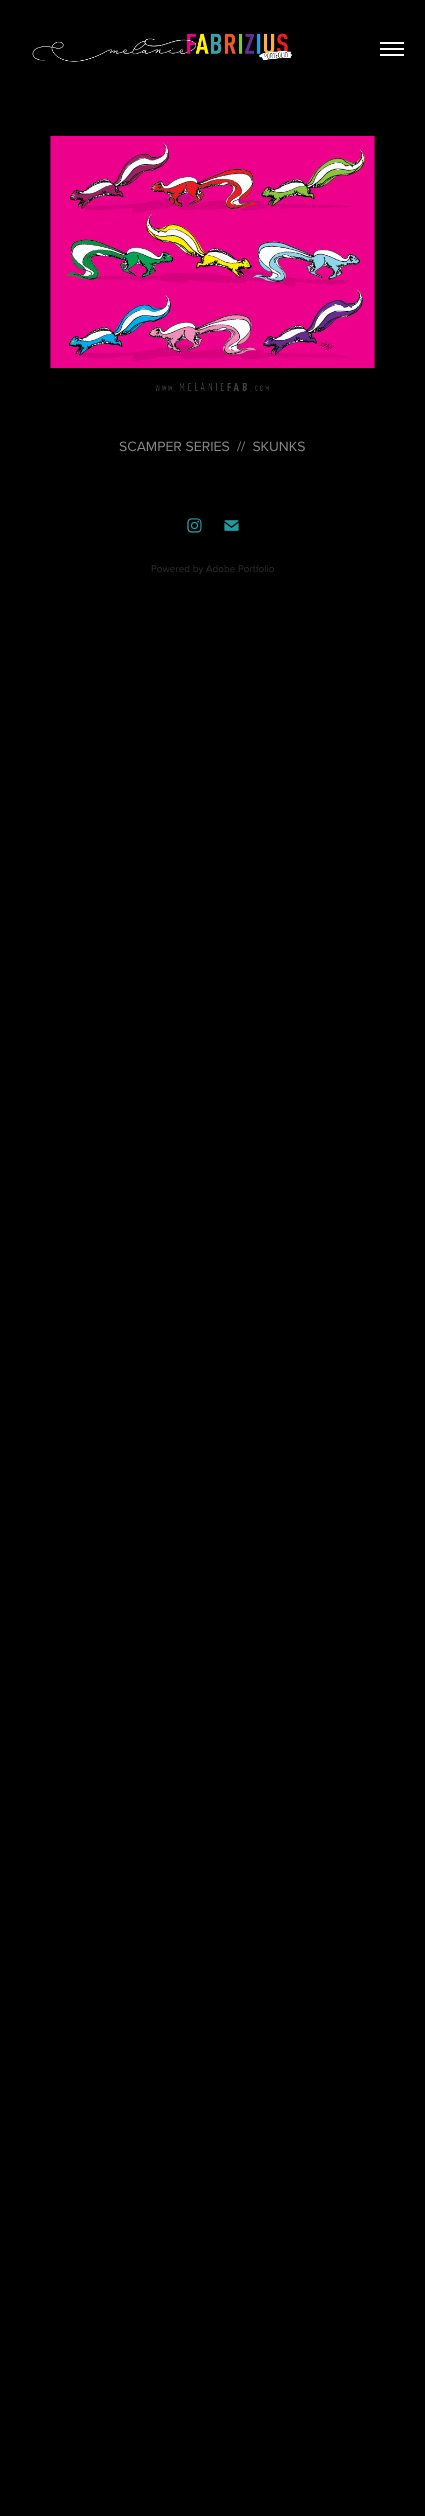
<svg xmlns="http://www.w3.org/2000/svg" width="425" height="2516">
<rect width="100%" height="100%" fill="#000"/>
<image x="32" y="33" width="260" height="29" href="media/1.png"/>
<rect x="380" y="42" width="24" height="2" fill="#fff"/>
<rect x="380" y="48" width="24" height="2" fill="#fff"/>
<rect x="380" y="54" width="24" height="2" fill="#fff"/>
<image x="50" y="136" width="325" height="256" href="media/2.png"/>
<text x="119" y="451" style="font-family:Proxima Nova;font-size:14px;fill:#888" xml:space="preserve">SCAMPER SERIES  //  SKUNKS</text>
<image x="187" y="518" width="15" height="15" href="media/3.png"/>
<image x="224" y="520" width="15" height="11" href="media/4.png"/>
<text x="151" y="572" style="font-family:Proxima Nova;font-size:10px;fill:#2e2e2e">Powered by Adobe Portfolio</text>
</svg>
